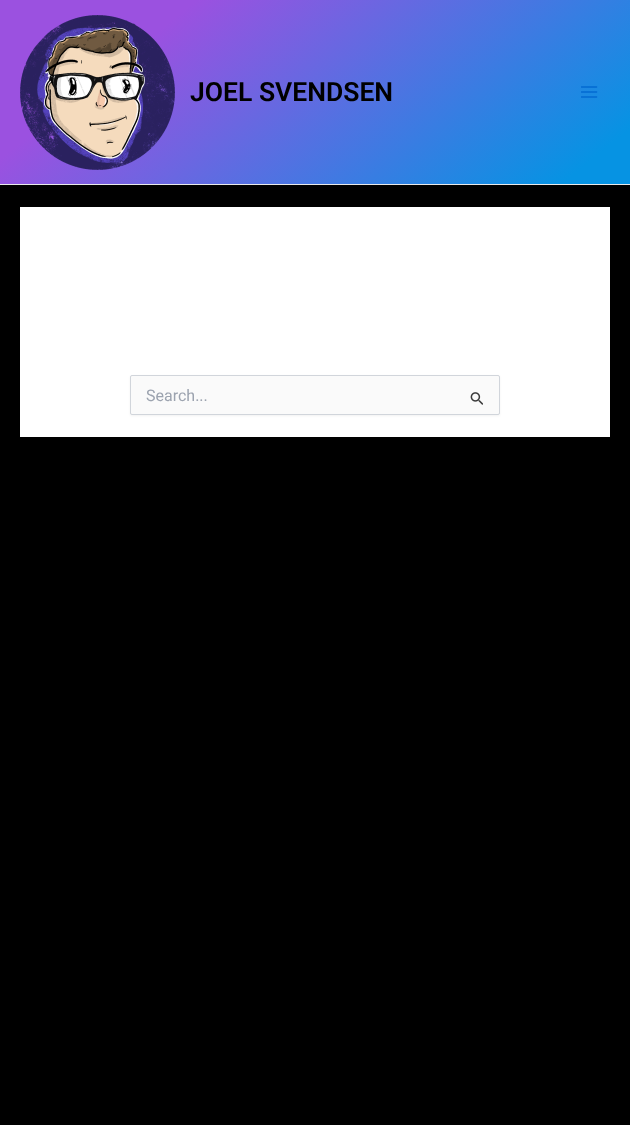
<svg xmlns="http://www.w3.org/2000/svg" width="630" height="1125">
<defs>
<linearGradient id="g1" gradientUnits="userSpaceOnUse" x1="485" y1="302" x2="145" y2="-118"><stop offset="0.08" stop-color="#0693e3"/><stop offset="0.77" stop-color="#9b51e0"/></linearGradient>
</defs>
<rect width="100%" height="100%" fill="#000"/>
<rect width="630" height="184" fill="url(#g1)"/>
<rect y="184" width="630" height="1" fill="#eaeaea"/>
<image x="20" y="15" width="155" height="155" href="media/1.png"/>
<text x="190" y="101" style="font-family:Roboto;font-size:26.5px;font-weight:600;fill:#000">JOEL SVENDSEN</text>
<image x="581" y="86" width="17" height="12" href="media/2.png"/>
<rect x="20" y="207" width="590" height="230" fill="#fff"/>
<rect x="130" y="376" width="370" height="40" rx="2" fill="#0000000d" filter="blur(1px)"/>
<rect x="130.5" y="375.5" width="369" height="39" rx="1.5" fill="#fafafa" stroke="#d1d5db"/>
<text x="146" y="401" style="font-family:Roboto;font-size:16px;fill:#9ca3af">Search...</text>
<image x="470" y="392" width="13" height="13" href="media/3.png"/>
</svg>
